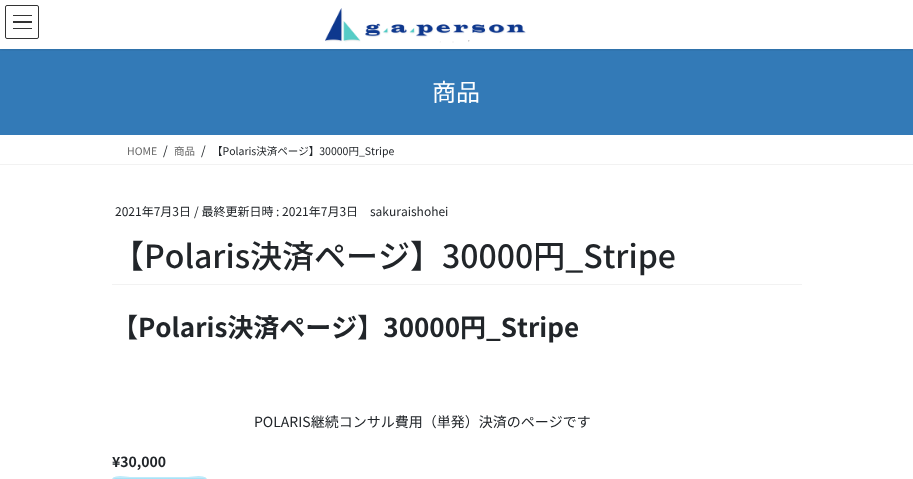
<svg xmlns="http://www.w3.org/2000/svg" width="913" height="479">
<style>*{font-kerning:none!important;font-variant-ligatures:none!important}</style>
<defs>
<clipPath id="clip1"><rect x="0" y="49" width="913" height="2"/></clipPath>
<linearGradient id="g1" gradientUnits="userSpaceOnUse" x1="112" y1="477" x2="112" y2="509"><stop offset="0" stop-color="#abe4f8"/><stop offset="1" stop-color="#6fcef3"/></linearGradient>
</defs>
<rect width="100%" height="100%" fill="#fff"/>
<rect y="49" width="913" height="86" fill="#337ab7"/>
<g clip-path="url(#clip1)">
<rect y="1" width="913" height="49" fill="#0000001a" filter="blur(1.5px)"/>
</g>
<image x="325" y="8" width="201" height="35" href="media/1.png"/>
<rect x="13" y="15" width="19" height="1" fill="#333"/>
<rect x="13" y="21" width="19" height="2" fill="#333"/>
<rect x="13" y="28" width="19" height="1" fill="#333"/>
<rect x="5.5" y="5.5" width="33" height="33" rx="1.5" fill="none" stroke="#333"/>
<text x="432" y="101" style="font-family:Noto Sans JP;font-size:24px;fill:#fff">商品</text>
<rect y="164" width="913" height="1" fill="#f2f2f2"/>
<text x="127" y="155" style="font-family:Noto Sans JP;font-size:10.5px;fill:#666">HOME</text>
<text x="163" y="155" style="font-family:Noto Sans JP;font-size:12px;fill:#212529">/</text>
<text x="174" y="155" style="font-family:Noto Sans JP;font-size:10.5px;fill:#666">商品</text>
<text x="201" y="155" style="font-family:Noto Sans JP;font-size:12px;fill:#212529">/</text>
<text x="212" y="155" style="font-family:Noto Sans JP;font-size:10.5px;fill:#212529">【Polaris決済ページ】30000円_Stripe</text>
<rect x="112" y="284" width="690" height="1" fill="#f2f2f2"/>
<text x="115" y="216" style="font-family:Noto Sans JP;font-size:12px;fill:#212529">2021年7月3日</text>
<text x="194" y="216" style="font-family:Noto Sans JP;font-size:12px;fill:#212529">/ 最終更新日時 : 2021年7月3日</text>
<text x="370" y="216" style="font-family:Noto Sans JP;font-size:12px;fill:#212529">sakuraishohei</text>
<text x="112" y="268" style="font-family:Noto Sans JP;font-size:32px;font-weight:500;fill:#212529">【Polaris決済ページ】30000円_Stripe</text>
<text x="112" y="337" style="font-family:Noto Sans JP;font-size:26px;font-weight:bold;fill:#212529">【Polaris決済ページ】30000円_Stripe</text>
<text x="254" y="427" style="font-family:Noto Sans JP;font-size:14px;fill:#212529">POLARIS継続コンサル費用（単発）決済のページです</text>
<text x="112" y="467" style="font-family:Noto Sans JP;font-size:14px;font-weight:bold;fill:#212529">¥30,000</text>
<rect x="112" y="477" width="95" height="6" rx="4" fill="url(#g1)"/>
<path d="M116 478h87c2 0 4 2 4 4c0-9-14-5-19-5h-58c-4 0-18-4-18 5c0-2 2-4 4-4z" fill="#c0ebfa"/>
</svg>
